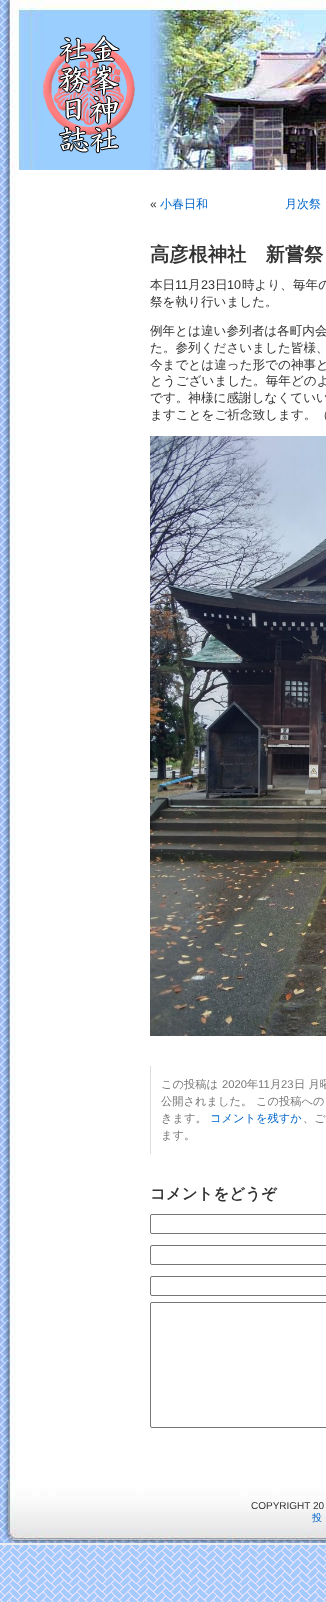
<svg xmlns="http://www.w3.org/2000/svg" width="326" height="1602">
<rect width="100%" height="100%" fill="#fff"/>
<image x="0" y="1545" width="326" height="57" href="media/1.png"/>
<image x="0" y="170" width="326" height="1310" href="media/2.png"/>
<image x="0" y="0" width="326" height="170" href="media/3.png"/>
<image x="30" y="0" width="120" height="170" href="media/4.png"/>
<text x="150" y="208" style="font-family:Liberation Sans;font-size:12px;fill:#333">«</text>
<text x="160" y="208" style="font-family:WenQuanYi Zen Hei;font-size:12px;font-weight:500;fill:#06c">小春日和</text>
<text x="285" y="208" style="font-family:WenQuanYi Zen Hei;font-size:12px;font-weight:500;fill:#06c">月次祭</text>
<text x="150" y="261" style="font-family:WenQuanYi Zen Hei;font-size:19.25px;font-weight:bold;fill:#333">高彦根神社　新嘗祭</text>
<text x="150" y="289" style="font-family:WenQuanYi Zen Hei;font-size:12.6px;font-weight:500;fill:#333">本日</text>
<text x="175" y="289" style="font-family:Liberation Sans;font-size:12.6px;fill:#333">11</text>
<text x="188" y="289" style="font-family:WenQuanYi Zen Hei;font-size:12.6px;font-weight:500;fill:#333">月</text>
<text x="201" y="289" style="font-family:Liberation Sans;font-size:12.6px;fill:#333">23</text>
<text x="215" y="289" style="font-family:WenQuanYi Zen Hei;font-size:12.6px;font-weight:500;fill:#333">日</text>
<text x="227" y="289" style="font-family:Liberation Sans;font-size:12.6px;fill:#333">10</text>
<text x="242" y="289" style="font-family:WenQuanYi Zen Hei;font-size:12.6px;font-weight:500;fill:#333">時より、毎年の</text>
<text x="150" y="306" style="font-family:WenQuanYi Zen Hei;font-size:12.6px;font-weight:500;fill:#333">祭を執り行いました。</text>
<text x="150" y="335" style="font-family:WenQuanYi Zen Hei;font-size:12.6px;font-weight:500;fill:#333">例年とは違い参列者は各町内会</text>
<text x="150" y="352" style="font-family:WenQuanYi Zen Hei;font-size:12.6px;font-weight:500;fill:#333">た。参列くださいました皆様、</text>
<text x="150" y="369" style="font-family:WenQuanYi Zen Hei;font-size:12.6px;font-weight:500;fill:#333">今までとは違った形での神事と</text>
<text x="150" y="385" style="font-family:WenQuanYi Zen Hei;font-size:12.6px;font-weight:500;fill:#333">とうございました。毎年どのよ</text>
<text x="150" y="402" style="font-family:WenQuanYi Zen Hei;font-size:12.6px;font-weight:500;fill:#333">です。神様に感謝しなくていい</text>
<text x="150" y="419" style="font-family:WenQuanYi Zen Hei;font-size:12.6px;font-weight:500;fill:#333">ますことをご祈念致します。（</text>
<image x="150" y="436" width="176" height="600" href="media/5.png"/>
<rect x="150" y="1066" width="1" height="88" fill="#ddd"/>
<text x="161" y="1088" style="font-family:WenQuanYi Zen Hei;font-size:11.25px;font-weight:500;fill:#777">この投稿は</text>
<text x="222" y="1088" style="font-family:Liberation Sans;font-size:11.25px;fill:#777">2020</text>
<text x="247" y="1088" style="font-family:WenQuanYi Zen Hei;font-size:11.25px;font-weight:500;fill:#777">年</text>
<text x="258" y="1088" style="font-family:Liberation Sans;font-size:11.25px;fill:#777">11</text>
<text x="270" y="1088" style="font-family:WenQuanYi Zen Hei;font-size:11.25px;font-weight:500;fill:#777">月</text>
<text x="281" y="1088" style="font-family:Liberation Sans;font-size:11.25px;fill:#777">23</text>
<text x="294" y="1088" style="font-family:WenQuanYi Zen Hei;font-size:11.25px;font-weight:500;fill:#777">日 月曜</text>
<text x="161" y="1105" style="font-family:WenQuanYi Zen Hei;font-size:11.25px;font-weight:500;fill:#777">公開されました。</text>
<text x="256" y="1105" style="font-family:WenQuanYi Zen Hei;font-size:11.25px;font-weight:500;fill:#777">この投稿への</text>
<text x="161" y="1122" style="font-family:WenQuanYi Zen Hei;font-size:11.25px;font-weight:500;fill:#777">きます。</text>
<text x="210" y="1122" style="font-family:WenQuanYi Zen Hei;font-size:11.25px;font-weight:500;fill:#06c">コメントを残すか</text>
<text x="303" y="1122" style="font-family:WenQuanYi Zen Hei;font-size:11.25px;font-weight:500;fill:#777">、ご</text>
<text x="161" y="1139" style="font-family:WenQuanYi Zen Hei;font-size:11.25px;font-weight:500;fill:#777">ます。</text>
<text x="150" y="1199" style="font-family:WenQuanYi Zen Hei;font-size:15.5px;font-weight:bold;fill:#333">コメントをどうぞ</text>
<rect x="150.5" y="1214.5" width="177" height="19" rx="1.5" fill="none" stroke="#767676"/>
<rect x="150.5" y="1245.5" width="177" height="19" rx="1.5" fill="none" stroke="#767676"/>
<rect x="150.5" y="1276.5" width="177" height="19" rx="1.5" fill="none" stroke="#767676"/>
<rect x="150.5" y="1302.5" width="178" height="125" rx="1.5" fill="none" stroke="#767676"/>
<rect y="1543" width="326" height="2" fill="#eee"/>
<image x="0" y="1480" width="326" height="63" href="media/6.png"/>
<text x="251" y="1509" style="font-family:Liberation Sans;font-size:10px;fill:#333">COPYRIGHT 20</text>
<text x="312" y="1521" style="font-family:WenQuanYi Zen Hei;font-size:10px;font-weight:500;fill:#06c">投</text>
</svg>
